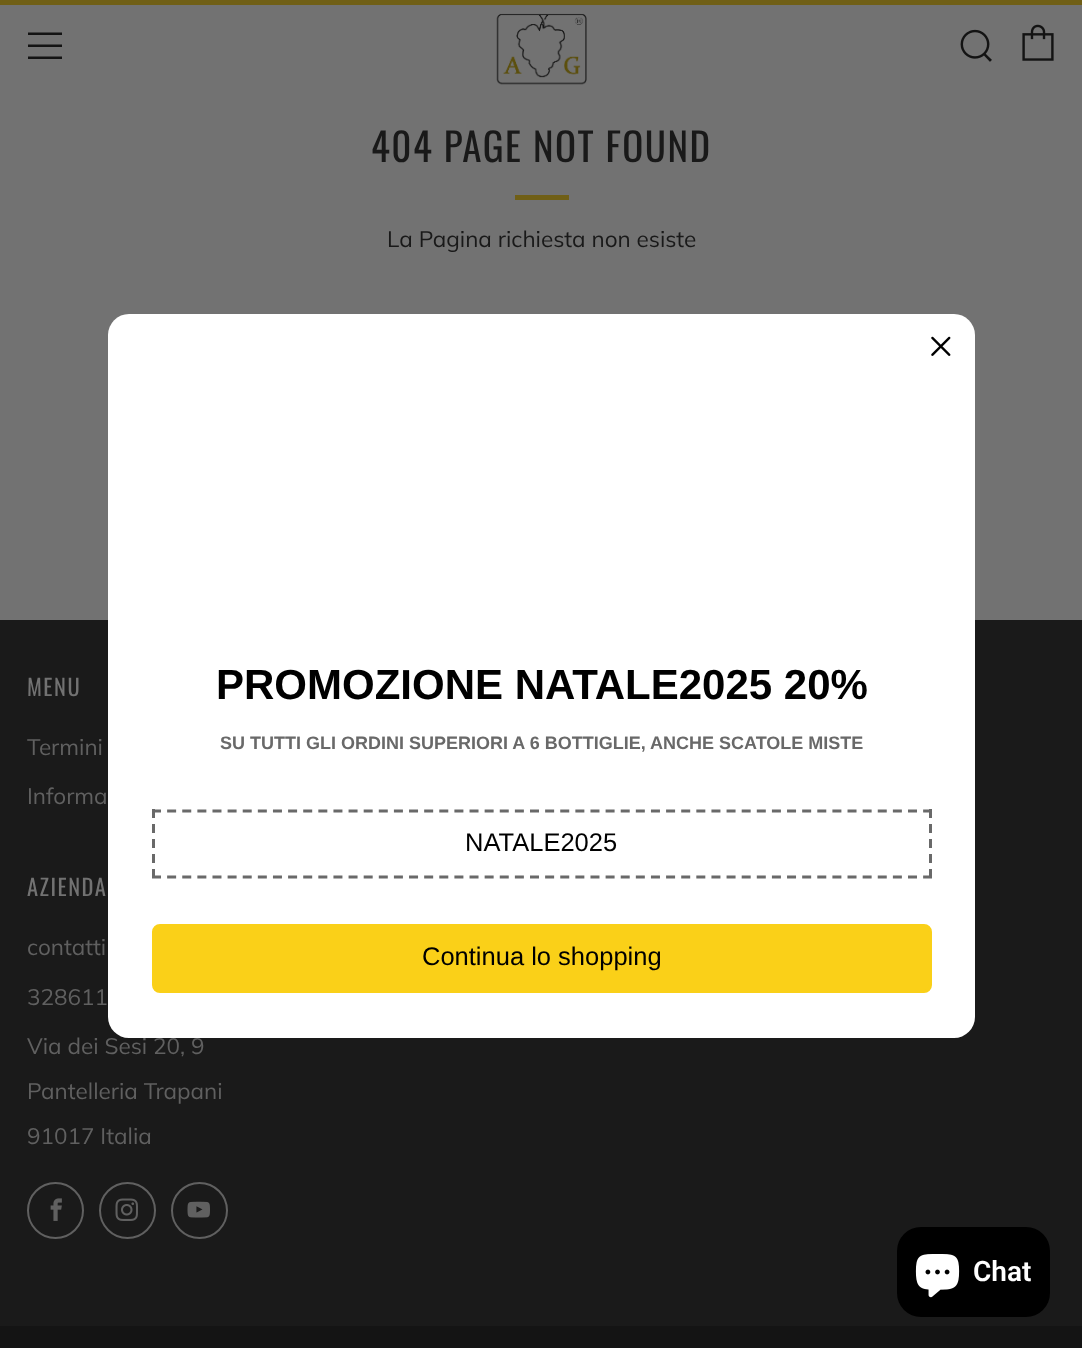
<svg xmlns="http://www.w3.org/2000/svg" width="1082" height="1348">
<rect width="100%" height="100%" fill="#727272"/>
<rect width="1082" height="5" fill="#705f16"/>
<path d="M28 35h34v-2.5h-34zm0 24h34v-2.5h-34zm0-12h34v-2.5h-34z" fill="#131313"/>
<image x="496" y="13" width="91" height="72" href="media/1.png"/>
<image x="960" y="29" width="32" height="33" href="media/2.png"/>
<image x="1022" y="24" width="32" height="37" href="media/3.png"/>
<text x="371" y="162" style="font-family:Oswald;font-size:39px;letter-spacing:1.5px;fill:#191919">404 PAGE NOT FOUND</text>
<rect x="515" y="195" width="54" height="5" fill="#705f16"/>
<text x="387" y="247" style="font-family:Muli;font-size:22.5px;fill:#191919">La Pagina richiesta non esiste</text>
<rect y="620" width="1082" height="706" fill="#1a1a1a"/>
<text x="27" y="696" style="font-family:Oswald;font-size:22.5px;letter-spacing:1.5px;fill:#727272">MENU</text>
<text x="27" y="755" style="font-family:Muli;font-size:22.5px;fill:#606060">Termini</text>
<text x="27" y="804" style="font-family:Muli;font-size:22.5px;fill:#606060">Informa</text>
<text x="27" y="896" style="font-family:Oswald;font-size:22.5px;letter-spacing:1.5px;fill:#727272">AZIENDA</text>
<text x="27" y="955" style="font-family:Muli;font-size:22.5px;fill:#606060">contatti</text>
<text x="27" y="1005" style="font-family:Muli;font-size:22.5px;fill:#606060">328611</text>
<text x="27" y="1054" style="font-family:Muli;font-size:22.5px;fill:#606060">Via dei Sesi 20, 9</text>
<text x="27" y="1099" style="font-family:Muli;font-size:22.5px;fill:#606060">Pantelleria Trapani</text>
<text x="27" y="1144" style="font-family:Muli;font-size:22.5px;fill:#606060">91017 Italia</text>
<circle cx="55.5" cy="1210.5" r="27.5" fill="none" stroke="#606060" stroke-width="2"/>
<image x="50" y="1198" width="12" height="23" href="media/4.png"/>
<circle cx="127.5" cy="1210.5" r="27.5" fill="none" stroke="#606060" stroke-width="2"/>
<image x="115" y="1198" width="23" height="23" href="media/5.png"/>
<circle cx="199.5" cy="1210.5" r="27.5" fill="none" stroke="#606060" stroke-width="2"/>
<image x="187" y="1201" width="23" height="17" href="media/6.png"/>
<rect y="1326" width="1082" height="22" fill="#141414"/>
<rect x="108" y="314" width="867" height="724" rx="21" fill="#fff"/>
<image x="931" y="336" width="20" height="20" href="media/7.png"/>
<text x="216" y="699" style="font-family:Liberation Sans;font-size:42px;font-weight:bold;fill:#000">PROMOZIONE NATALE2025 20%</text>
<text x="220" y="749" style="font-family:Liberation Sans;font-size:18px;font-weight:bold;fill:#696969">SU TUTTI GLI ORDINI SUPERIORI A 6 BOTTIGLIE, ANCHE SCATOLE MISTE</text>
<path d="M152 811h780" fill="none" stroke="#696969" stroke-width="3" stroke-dasharray="9 6.12"/>
<path d="M930.5 809v69" fill="none" stroke="#696969" stroke-width="3" stroke-dasharray="9 6"/>
<path d="M152 877h780" fill="none" stroke="#696969" stroke-width="3" stroke-dasharray="9 6.12"/>
<path d="M153.5 809v69" fill="none" stroke="#696969" stroke-width="3" stroke-dasharray="9 6"/>
<text x="465" y="851" style="font-family:Liberation Sans;font-size:25.5px;fill:#000">NATALE2025</text>
<rect x="153.5" y="925.5" width="777" height="66" rx="6.5" fill="#fad018" stroke="#fad018" stroke-width="3"/>
<text x="422" y="965" style="font-family:Liberation Sans;font-size:25.5px;fill:#000">Continua lo shopping</text>
<rect x="897" y="1227" width="153" height="90" rx="24" fill="#000"/>
<image x="915" y="1254" width="45" height="44" href="media/8.png"/>
<text x="973" y="1281" style="font-family:Roboto;font-size:28px;font-weight:600;fill:#fff">Chat</text>
</svg>
